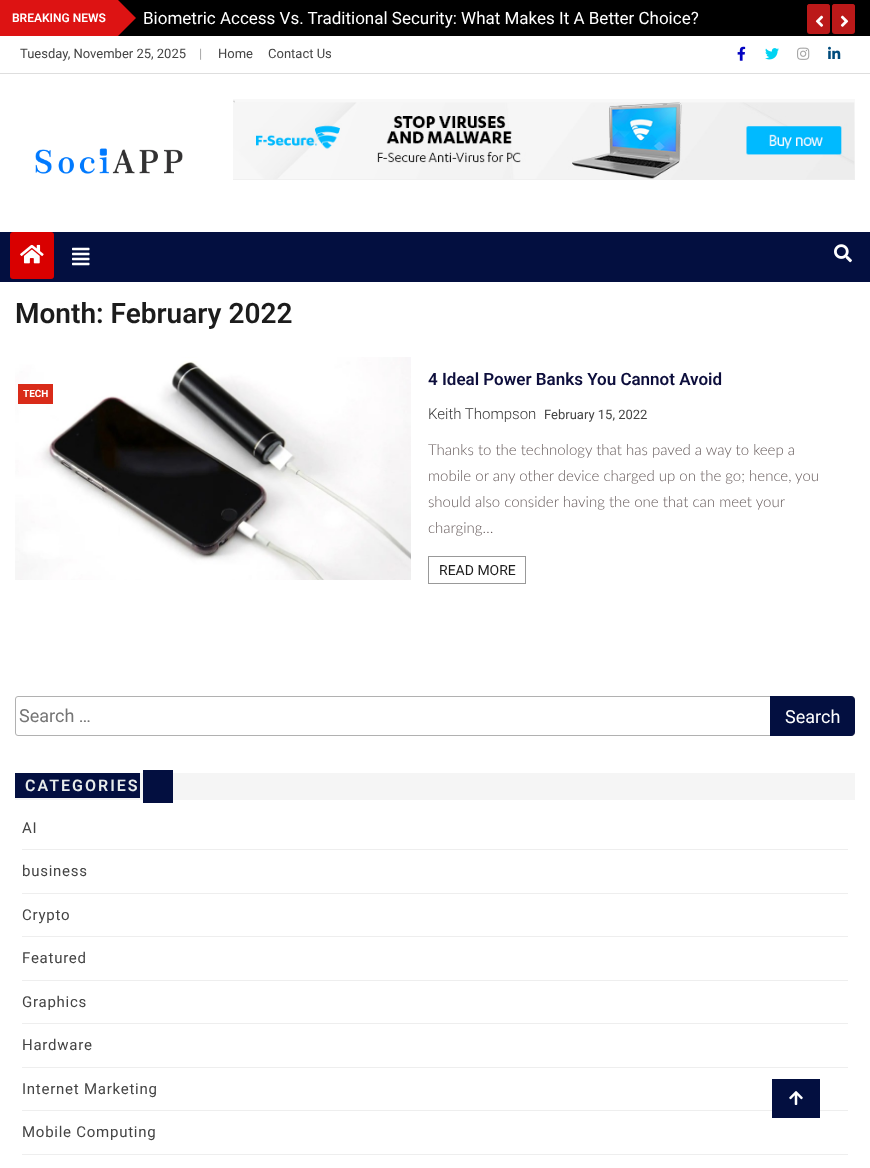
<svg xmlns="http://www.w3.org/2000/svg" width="870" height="1168">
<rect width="100%" height="100%" fill="#fff"/>
<rect x="118" width="752" height="36" fill="#000"/>
<rect width="118" height="36" fill="#dd1313"/>
<text x="12" y="22" style="font-family:Roboto;font-size:12px;font-weight:600;fill:#fff">BREAKING NEWS</text>
<path d="M118 36v-36l18 18z" fill="#dd1313"/>
<text x="143" y="24" style="font-family:Roboto;font-size:17px;fill:#fff">Biometric Access Vs. Traditional Security: What Makes It A Better Choice?</text>
<rect x="807" y="4" width="23" height="30" rx="3" fill="#bb1919"/>
<rect x="807" y="4" width="23" height="16" rx="3" fill="#bb1919"/>
<image x="815" y="15" width="9" height="12" href="media/1.png"/>
<rect x="832" y="4" width="23" height="30" rx="3" fill="#bb1919"/>
<rect x="832" y="4" width="23" height="16" rx="3" fill="#bb1919"/>
<image x="840" y="15" width="9" height="12" href="media/2.png"/>
<rect y="73" width="870" height="1" fill="#dedede"/>
<text x="20" y="58" style="font-family:Roboto;font-size:13px;fill:#444">Tuesday, November 25, 2025</text>
<text x="199" y="58" style="font-family:Roboto;font-size:13px;fill:#a3a3a3">|</text>
<text x="218" y="58" style="font-family:Roboto;font-size:13px;fill:#444">Home</text>
<text x="268" y="58" style="font-family:Roboto;font-size:13px;fill:#444">Contact Us</text>
<image x="737" y="46" width="9" height="15" href="media/3.png"/>
<image x="765" y="48" width="14" height="12" href="media/4.png"/>
<image x="797" y="47" width="13" height="13" href="media/5.png"/>
<image x="828" y="46" width="13" height="13" href="media/6.png"/>
<image x="35" y="148" width="148" height="26" href="media/7.png"/>
<image x="233" y="99" width="622" height="81" href="media/8.png"/>
<rect y="232" width="870" height="50" fill="#030f40"/>
<rect x="10" y="232" width="44" height="47" rx="3" fill="#d90000"/>
<image x="20" y="244" width="24" height="20" href="media/9.png"/>
<image x="72" y="247" width="18" height="19" href="media/10.png"/>
<image x="834" y="244" width="18" height="19" href="media/11.png"/>
<text x="15" y="323" style="font-family:Roboto;font-size:28px;font-weight:600;fill:#1c1c1c">Month: February 2022</text>
<image x="15" y="357" width="396" height="223" href="media/12.png"/>
<text x="428" y="385" style="font-family:Roboto;font-size:17px;font-weight:600;fill:#0d0e3c">4 Ideal Power Banks You Cannot Avoid</text>
<text x="428" y="419" style="font-family:Roboto;font-size:15px;font-weight:300;fill:#393939">Keith Thompson</text>
<text x="544" y="419" style="font-family:Roboto;font-size:13px;fill:#444">February 15, 2022</text>
<text x="428" y="455" style="font-family:Lato;font-size:15px;font-weight:300;fill:#665b5b">Thanks to the technology that has paved a way to keep a</text>
<text x="428" y="481" style="font-family:Lato;font-size:15px;font-weight:300;fill:#665b5b">mobile or any other device charged up on the go; hence, you</text>
<text x="428" y="507" style="font-family:Lato;font-size:15px;font-weight:300;fill:#665b5b">should also consider having the one that can meet your</text>
<text x="428" y="533" style="font-family:Lato;font-size:15px;font-weight:300;fill:#665b5b">charging…</text>
<rect x="428.5" y="556.5" width="97" height="27" fill="none" stroke="#999"/>
<text x="439" y="575" style="font-family:Roboto;font-size:14px;fill:#1c1c1c">READ MORE</text>
<rect x="18" y="384" width="35" height="20" fill="#d92b19"/>
<text x="23" y="397" style="font-family:Roboto;font-size:10px;font-weight:bold;fill:#fff">TECH</text>
<rect x="15.5" y="696.5" width="839" height="39" rx="2.5" fill="none" stroke="#b1b1b1"/>
<text x="19" y="722" style="font-family:Roboto;font-size:18px;fill:#757575">Search …</text>
<path d="M770 696h81c2 0 4 2 4 4v32c0 2-2 4-4 4h-81z" fill="#030f40"/>
<text x="785" y="723" style="font-family:Roboto;font-size:18px;fill:#fff">Search</text>
<rect x="15" y="773" width="840" height="27" fill="#f5f5f5"/>
<rect x="15" y="773" width="125" height="25" fill="#030f40"/>
<text x="25" y="791" style="font-family:Roboto;font-size:16px;font-weight:600;letter-spacing:2px;fill:#e7eceb">CATEGORIES</text>
<rect x="143" y="770" width="30" height="33" fill="#030f40"/>
<rect x="22" y="849" width="826" height="1" fill="#eee"/>
<text x="22" y="833" style="font-family:Roboto;font-size:15px;letter-spacing:0.75px;fill:#444">AI</text>
<rect x="22" y="893" width="826" height="1" fill="#eee"/>
<text x="22" y="876" style="font-family:Roboto;font-size:15px;letter-spacing:0.75px;fill:#444">business</text>
<rect x="22" y="936" width="826" height="1" fill="#eee"/>
<text x="22" y="920" style="font-family:Roboto;font-size:15px;letter-spacing:0.75px;fill:#444">Crypto</text>
<rect x="22" y="980" width="826" height="1" fill="#eee"/>
<text x="22" y="963" style="font-family:Roboto;font-size:15px;letter-spacing:0.75px;fill:#444">Featured</text>
<rect x="22" y="1023" width="826" height="1" fill="#eee"/>
<text x="22" y="1007" style="font-family:Roboto;font-size:15px;letter-spacing:0.75px;fill:#444">Graphics</text>
<rect x="22" y="1067" width="826" height="1" fill="#eee"/>
<text x="22" y="1050" style="font-family:Roboto;font-size:15px;letter-spacing:0.75px;fill:#444">Hardware</text>
<rect x="22" y="1110" width="826" height="1" fill="#eee"/>
<text x="22" y="1094" style="font-family:Roboto;font-size:15px;letter-spacing:0.75px;fill:#444">Internet Marketing</text>
<rect x="22" y="1154" width="826" height="1" fill="#eee"/>
<text x="22" y="1137" style="font-family:Roboto;font-size:15px;letter-spacing:0.75px;fill:#444">Mobile Computing</text>
<rect x="772" y="1079" width="48" height="39" fill="#030f40"/>
<image x="789" y="1091" width="14" height="14" href="media/13.png"/>
</svg>
